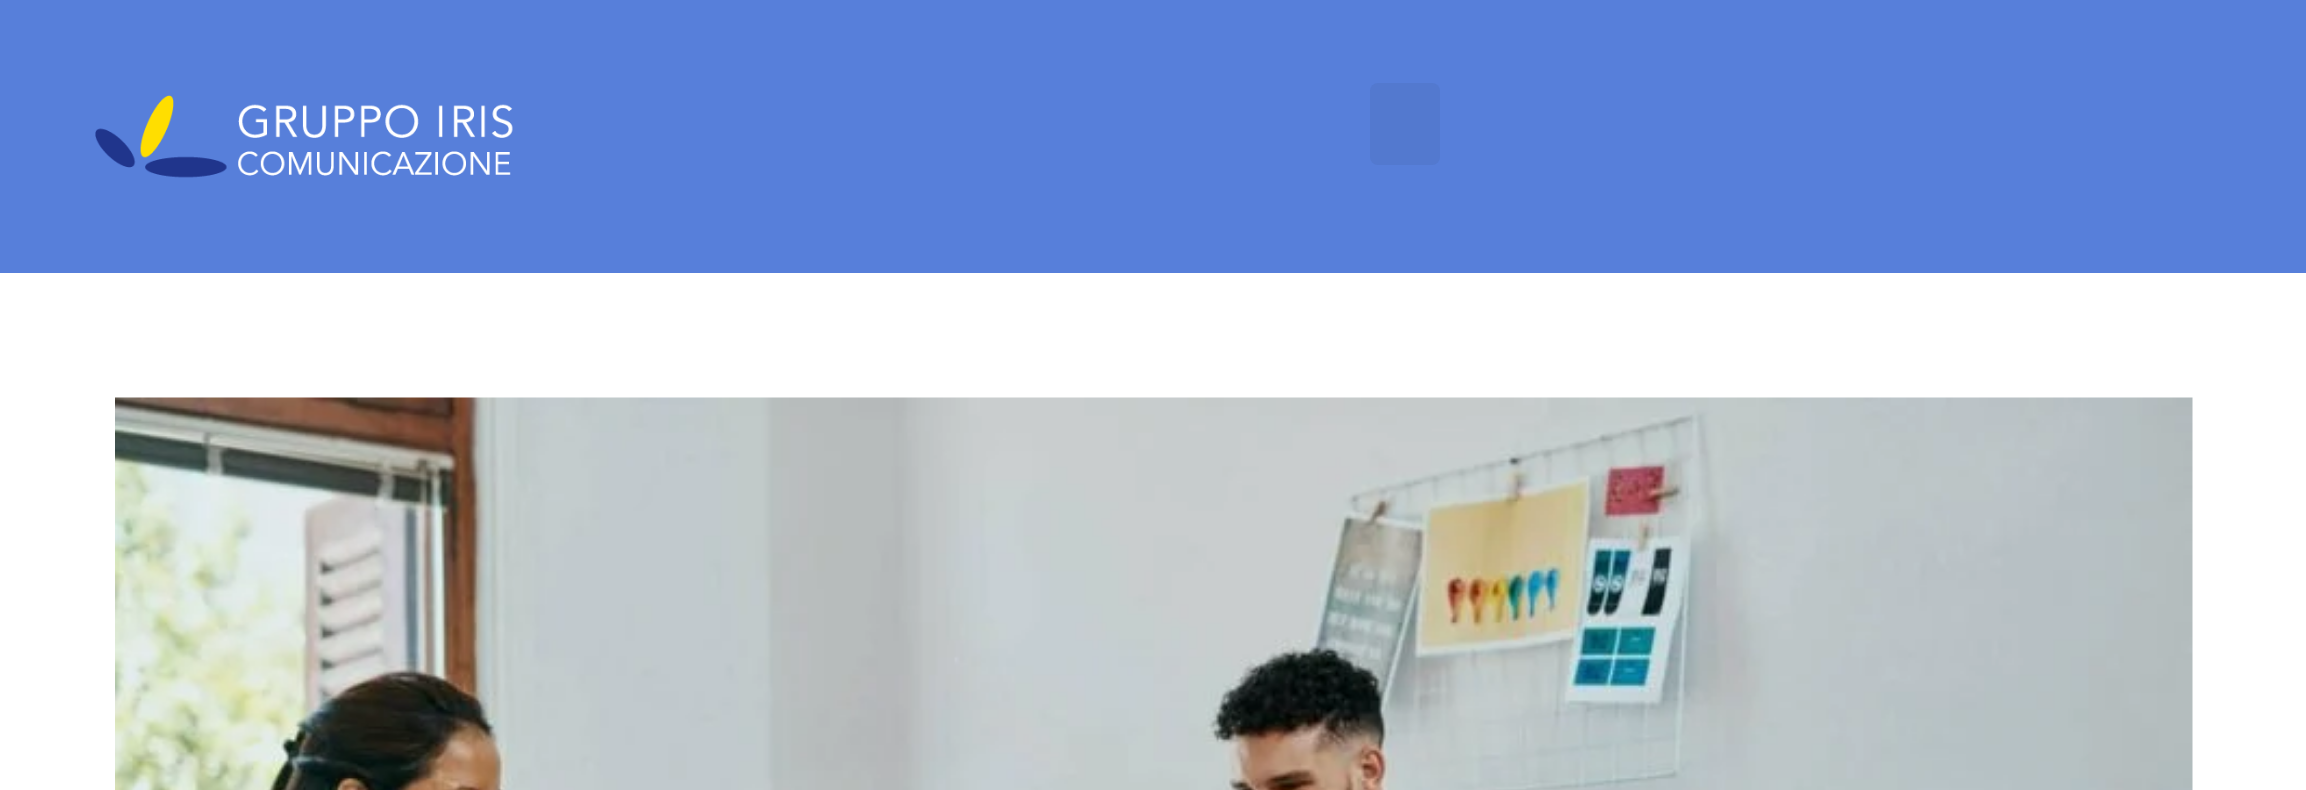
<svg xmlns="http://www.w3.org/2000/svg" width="2306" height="790">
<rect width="100%" height="100%" fill="#fff"/>
<rect width="2306" height="273" fill="#577fda"/>
<image x="95" y="95" width="418" height="83" href="media/1.png"/>
<rect x="1370" y="83" width="70" height="82" rx="8" fill="#5379cf"/>
<image x="115" y="397" width="2078" height="393" href="media/2.png"/>
</svg>
